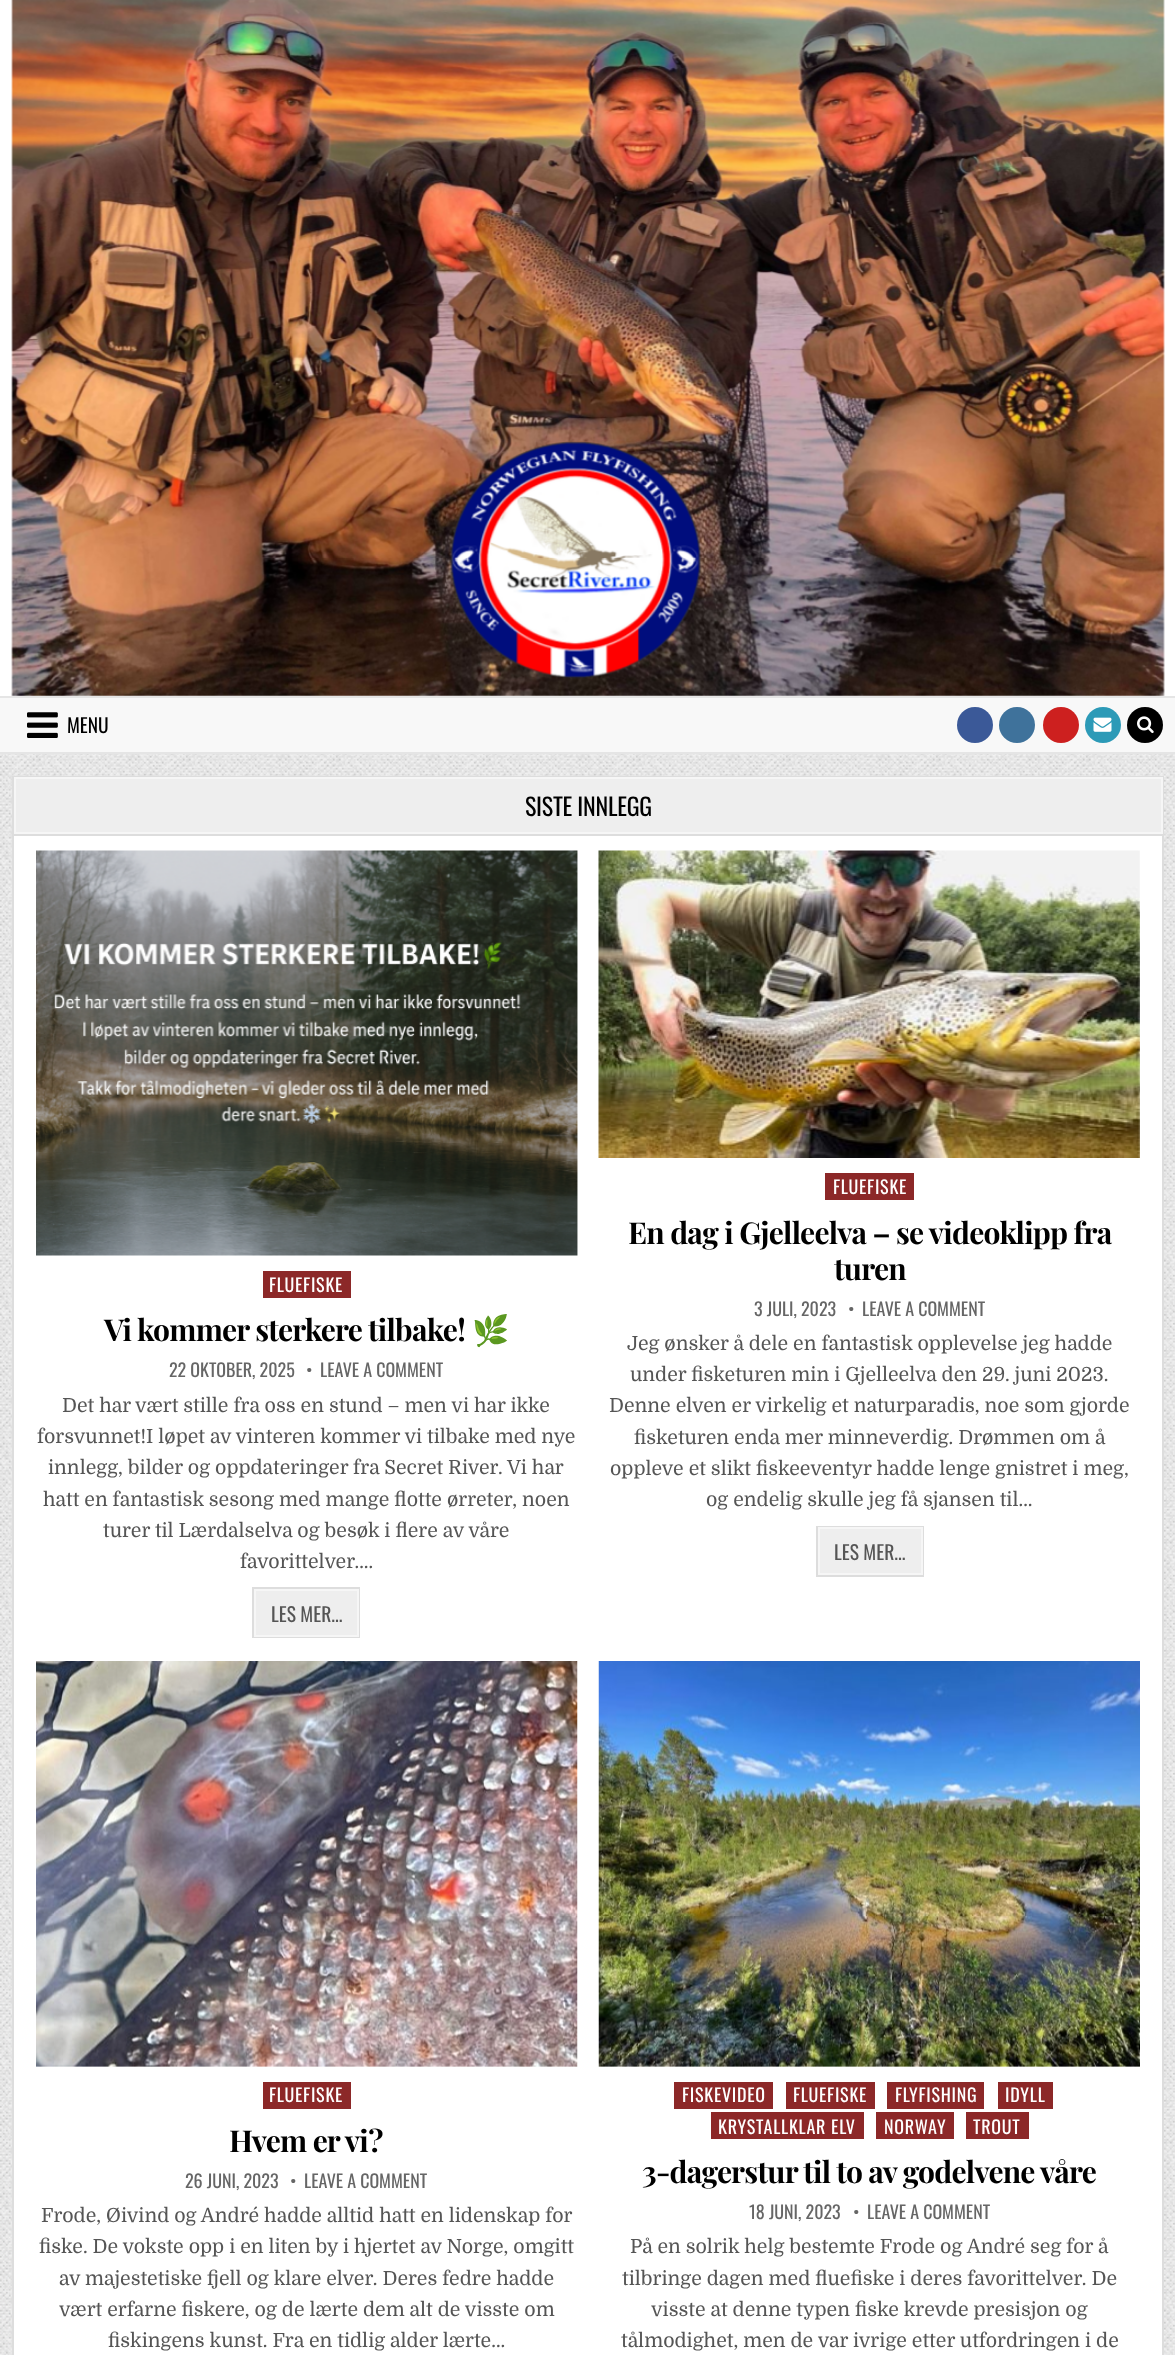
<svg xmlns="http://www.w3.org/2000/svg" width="1175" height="2355">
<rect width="100%" height="100%" fill="#fff"/>
<image x="0" y="754" width="1175" height="1601" href="media/1.png"/>
<image x="11" y="0" width="1154" height="696" href="media/2.png"/>
<rect y="698" width="1175" height="54" fill="#f8f8f8"/>
<rect y="696" width="1175" height="2" fill="#e5e5e5"/>
<rect y="752" width="1175" height="2" fill="#e5e5e5"/>
<image x="27" y="712" width="31" height="26" href="media/3.png"/>
<text x="67" y="733" style="font-family:Oswald;font-size:19.5px;fill:#000">MENU</text>
<circle cx="975" cy="725" r="18" fill="#3b5998"/>
<circle cx="1017" cy="725" r="18" fill="#3f729b"/>
<circle cx="1061" cy="725" r="18" fill="#cd201f"/>
<circle cx="1103" cy="725" r="18" fill="#2c9ab7"/>
<image x="1093" y="717" width="19" height="15" href="media/4.png"/>
<circle cx="1145" cy="725" r="18" fill="#000"/>
<image x="1137" y="716" width="17" height="18" href="media/5.png"/>
<rect x="14" y="836" width="1148" height="1519" fill="#fff"/>
<rect x="13" y="777" width="1150" height="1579" fill="none" stroke="#ddd" stroke-width="2"/>
<rect x="14" y="834" width="1149" height="2" fill="#ddd"/>
<rect x="15" y="778" width="1147" height="55" fill="#eee" stroke="#f6f6f6" stroke-width="2"/>
<text x="525" y="816" style="font-family:Oswald;font-size:24px;letter-spacing:-0.25px;fill:#000">SISTE INNLEGG</text>
<image x="36" y="850" width="542" height="406" href="media/6.png"/>
<rect x="263" y="1271" width="88" height="27" fill="#8c2828"/>
<text x="269" y="1292" style="font-family:Oswald;font-size:18px;letter-spacing:0.75px;fill:#fff">FLUEFISKE</text>
<text x="104" y="1341" style="font-family:Playfair Display;font-size:30px;font-weight:bold;letter-spacing:-0.75px;fill:#000">Vi kommer sterkere tilbake!</text>
<text x="472" y="1341" style="font-family:Noto Color Emoji;font-size:30px;font-weight:bold;letter-spacing:-0.75px;fill:#000">🌿</text>
<text x="169" y="1377" style="font-family:Oswald;font-size:18px;fill:#666">22 OKTOBER, 2025</text>
<text x="306" y="1377" style="font-family:Oswald;font-size:18px;fill:#666">•</text>
<text x="320" y="1377" style="font-family:Oswald;font-size:18px;fill:#666">LEAVE A COMMENT</text>
<text x="62" y="1412" style="font-family:Domine;font-size:19.5px;fill:#555">Det har vært stille fra oss en stund – men vi har ikke</text>
<text x="37" y="1443" style="font-family:Domine;font-size:19.5px;fill:#555">forsvunnet!I løpet av vinteren kommer vi tilbake med nye</text>
<text x="48" y="1474" style="font-family:Domine;font-size:19.5px;fill:#555">innlegg, bilder og oppdateringer fra Secret River. Vi har</text>
<text x="43" y="1506" style="font-family:Domine;font-size:19.5px;fill:#555">hatt en fantastisk sesong med mange flotte ørreter, noen</text>
<text x="103" y="1537" style="font-family:Domine;font-size:19.5px;fill:#555">turer til Lærdalselva og besøk i flere av våre</text>
<text x="240" y="1568" style="font-family:Domine;font-size:19.5px;fill:#555">favorittelver….</text>
<rect x="256" y="1591" width="101" height="44" fill="#eee"/>
<rect x="253" y="1588" width="106" height="49" fill="none" stroke="#ddd" stroke-width="2"/>
<rect x="255" y="1590" width="103" height="46" fill="none" stroke="#f6f6f6" stroke-width="2"/>
<text x="271" y="1622" style="font-family:Oswald;font-size:19.5px;fill:#555">LES MER...</text>
<image x="598" y="850" width="542" height="308" href="media/7.png"/>
<rect x="825" y="1173" width="89" height="27" fill="#8c2828"/>
<text x="833" y="1194" style="font-family:Oswald;font-size:18px;letter-spacing:0.75px;fill:#fff">FLUEFISKE</text>
<text x="628" y="1244" style="font-family:Playfair Display;font-size:30px;font-weight:bold;letter-spacing:-0.75px;fill:#000">En dag i Gjelleelva – se videoklipp fra</text>
<text x="834" y="1280" style="font-family:Playfair Display;font-size:30px;font-weight:bold;letter-spacing:-0.75px;fill:#000">turen</text>
<text x="754" y="1316" style="font-family:Oswald;font-size:18px;fill:#666">3 JULI, 2023</text>
<text x="848" y="1316" style="font-family:Oswald;font-size:18px;fill:#666">•</text>
<text x="862" y="1316" style="font-family:Oswald;font-size:18px;fill:#666">LEAVE A COMMENT</text>
<text x="627" y="1350" style="font-family:Domine;font-size:19.5px;fill:#555">Jeg ønsker å dele en fantastisk opplevelse jeg hadde</text>
<text x="630" y="1381" style="font-family:Domine;font-size:19.5px;fill:#555">under fisketuren min i Gjelleelva den 29. juni 2023.</text>
<text x="609" y="1412" style="font-family:Domine;font-size:19.5px;fill:#555">Denne elven er virkelig et naturparadis, noe som gjorde</text>
<text x="634" y="1444" style="font-family:Domine;font-size:19.5px;fill:#555">fisketuren enda mer minneverdig. Drømmen om å</text>
<text x="610" y="1475" style="font-family:Domine;font-size:19.5px;fill:#555">oppleve et slikt fiskeeventyr hadde lenge gnistret i meg,</text>
<text x="706" y="1506" style="font-family:Domine;font-size:19.5px;fill:#555">og endelig skulle jeg få sjansen til…</text>
<rect x="820" y="1529" width="101" height="44" fill="#eee"/>
<rect x="817" y="1527" width="106" height="49" fill="none" stroke="#ddd" stroke-width="2"/>
<rect x="819" y="1528" width="103" height="46" fill="none" stroke="#f6f6f6" stroke-width="2"/>
<text x="834" y="1560" style="font-family:Oswald;font-size:19.5px;fill:#555">LES MER...</text>
<image x="36" y="1661" width="542" height="406" href="media/8.png"/>
<rect x="263" y="2082" width="88" height="27" fill="#8c2828"/>
<text x="269" y="2102" style="font-family:Oswald;font-size:18px;letter-spacing:0.75px;fill:#fff">FLUEFISKE</text>
<text x="229" y="2152" style="font-family:Playfair Display;font-size:30px;font-weight:bold;letter-spacing:-0.75px;fill:#000">Hvem er vi?</text>
<text x="185" y="2188" style="font-family:Oswald;font-size:18px;fill:#666">26 JUNI, 2023</text>
<text x="290" y="2188" style="font-family:Oswald;font-size:18px;fill:#666">•</text>
<text x="304" y="2188" style="font-family:Oswald;font-size:18px;fill:#666">LEAVE A COMMENT</text>
<text x="41" y="2222" style="font-family:Domine;font-size:19.5px;fill:#555">Frode, Øivind og André hadde alltid hatt en lidenskap for</text>
<text x="39" y="2253" style="font-family:Domine;font-size:19.5px;fill:#555">fiske. De vokste opp i en liten by i hjertet av Norge, omgitt</text>
<text x="59" y="2285" style="font-family:Domine;font-size:19.5px;fill:#555">av majestetiske fjell og klare elver. Deres fedre hadde</text>
<text x="59" y="2316" style="font-family:Domine;font-size:19.5px;fill:#555">vært erfarne fiskere, og de lærte dem alt de visste om</text>
<text x="108" y="2347" style="font-family:Domine;font-size:19.5px;fill:#555">fiskingens kunst. Fra en tidlig alder lærte…</text>
<image x="598" y="1661" width="542" height="406" href="media/9.png"/>
<rect x="674" y="2082" width="99" height="27" fill="#8c2828"/>
<text x="682" y="2102" style="font-family:Oswald;font-size:18px;letter-spacing:0.75px;fill:#fff">FISKEVIDEO</text>
<rect x="786" y="2082" width="89" height="27" fill="#8c2828"/>
<text x="793" y="2102" style="font-family:Oswald;font-size:18px;letter-spacing:0.75px;fill:#fff">FLUEFISKE</text>
<rect x="887" y="2082" width="97" height="27" fill="#8c2828"/>
<text x="895" y="2102" style="font-family:Oswald;font-size:18px;letter-spacing:0.75px;fill:#fff">FLYFISHING</text>
<rect x="998" y="2082" width="55" height="27" fill="#8c2828"/>
<text x="1005" y="2102" style="font-family:Oswald;font-size:18px;letter-spacing:0.75px;fill:#fff">IDYLL</text>
<rect x="711" y="2112" width="153" height="27" fill="#8c2828"/>
<text x="718" y="2134" style="font-family:Oswald;font-size:18px;letter-spacing:0.75px;fill:#fff">KRYSTALLKLAR ELV</text>
<rect x="876" y="2112" width="78" height="27" fill="#8c2828"/>
<text x="884" y="2134" style="font-family:Oswald;font-size:18px;letter-spacing:0.75px;fill:#fff">NORWAY</text>
<rect x="966" y="2112" width="63" height="27" fill="#8c2828"/>
<text x="973" y="2134" style="font-family:Oswald;font-size:18px;letter-spacing:0.75px;fill:#fff">TROUT</text>
<text x="642" y="2183" style="font-family:Playfair Display;font-size:30px;font-weight:bold;letter-spacing:-0.75px;fill:#000">3-dagerstur til to av godelvene våre</text>
<text x="749" y="2219" style="font-family:Oswald;font-size:18px;fill:#666">18 JUNI, 2023</text>
<text x="853" y="2219" style="font-family:Oswald;font-size:18px;fill:#666">•</text>
<text x="867" y="2219" style="font-family:Oswald;font-size:18px;fill:#666">LEAVE A COMMENT</text>
<text x="630" y="2253" style="font-family:Domine;font-size:19.5px;fill:#555">På en solrik helg bestemte Frode og André seg for å</text>
<text x="622" y="2285" style="font-family:Domine;font-size:19.5px;fill:#555">tilbringe dagen med fluefiske i deres favorittelver. De</text>
<text x="651" y="2316" style="font-family:Domine;font-size:19.5px;fill:#555">visste at denne typen fiske krevde presisjon og</text>
<text x="621" y="2347" style="font-family:Domine;font-size:19.5px;fill:#555">tålmodighet, men de var ivrige etter utfordringen i de</text>
</svg>
